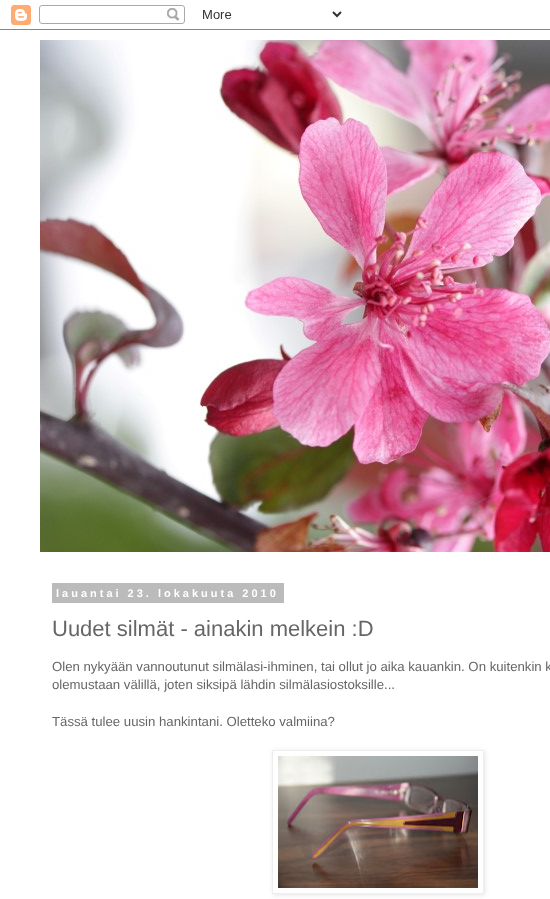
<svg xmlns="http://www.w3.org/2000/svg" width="550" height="899">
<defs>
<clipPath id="clip1"><path d="M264 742h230v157h-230zm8 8h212v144h-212z" clip-rule="evenodd"/></clipPath>
</defs>
<rect width="100%" height="100%" fill="#fff"/>
<image x="0" y="5" width="550" height="25" href="media/1.png"/>
<image x="40" y="40" width="510" height="512" href="media/2.png"/>
<rect x="52" y="583" width="232" height="20" fill="#bbb"/>
<text x="56" y="597" style="font-family:Liberation Sans;font-size:11px;font-weight:bold;letter-spacing:3px;fill:#fff">lauantai 23. lokakuuta 2010</text>
<text x="52" y="636" style="font-family:Liberation Sans;font-size:22px;fill:#666">Uudet silmät - ainakin melkein :D</text>
<text x="52" y="671" style="font-family:Liberation Sans;font-size:13.2px;fill:#666">Olen nykyään vannoutunut silmälasi-ihminen, tai ollut jo aika kauankin. On kuitenkin k</text>
<text x="52" y="689" style="font-family:Liberation Sans;font-size:13.2px;fill:#666">olemustaan välillä, joten siksipä lähdin silmälasiostoksille...</text>
<text x="52" y="726" style="font-family:Liberation Sans;font-size:13.2px;fill:#666">Tässä tulee uusin hankintani. Oletteko valmiina?</text>
<g clip-path="url(#clip1)">
<rect x="273" y="751" width="212" height="144" fill="#0000001a" filter="blur(2.5px)"/>
</g>
<rect x="272.5" y="750.5" width="211" height="143" fill="none" stroke="#eee"/>
<image x="278" y="756" width="200" height="132" href="media/3.png"/>
</svg>
